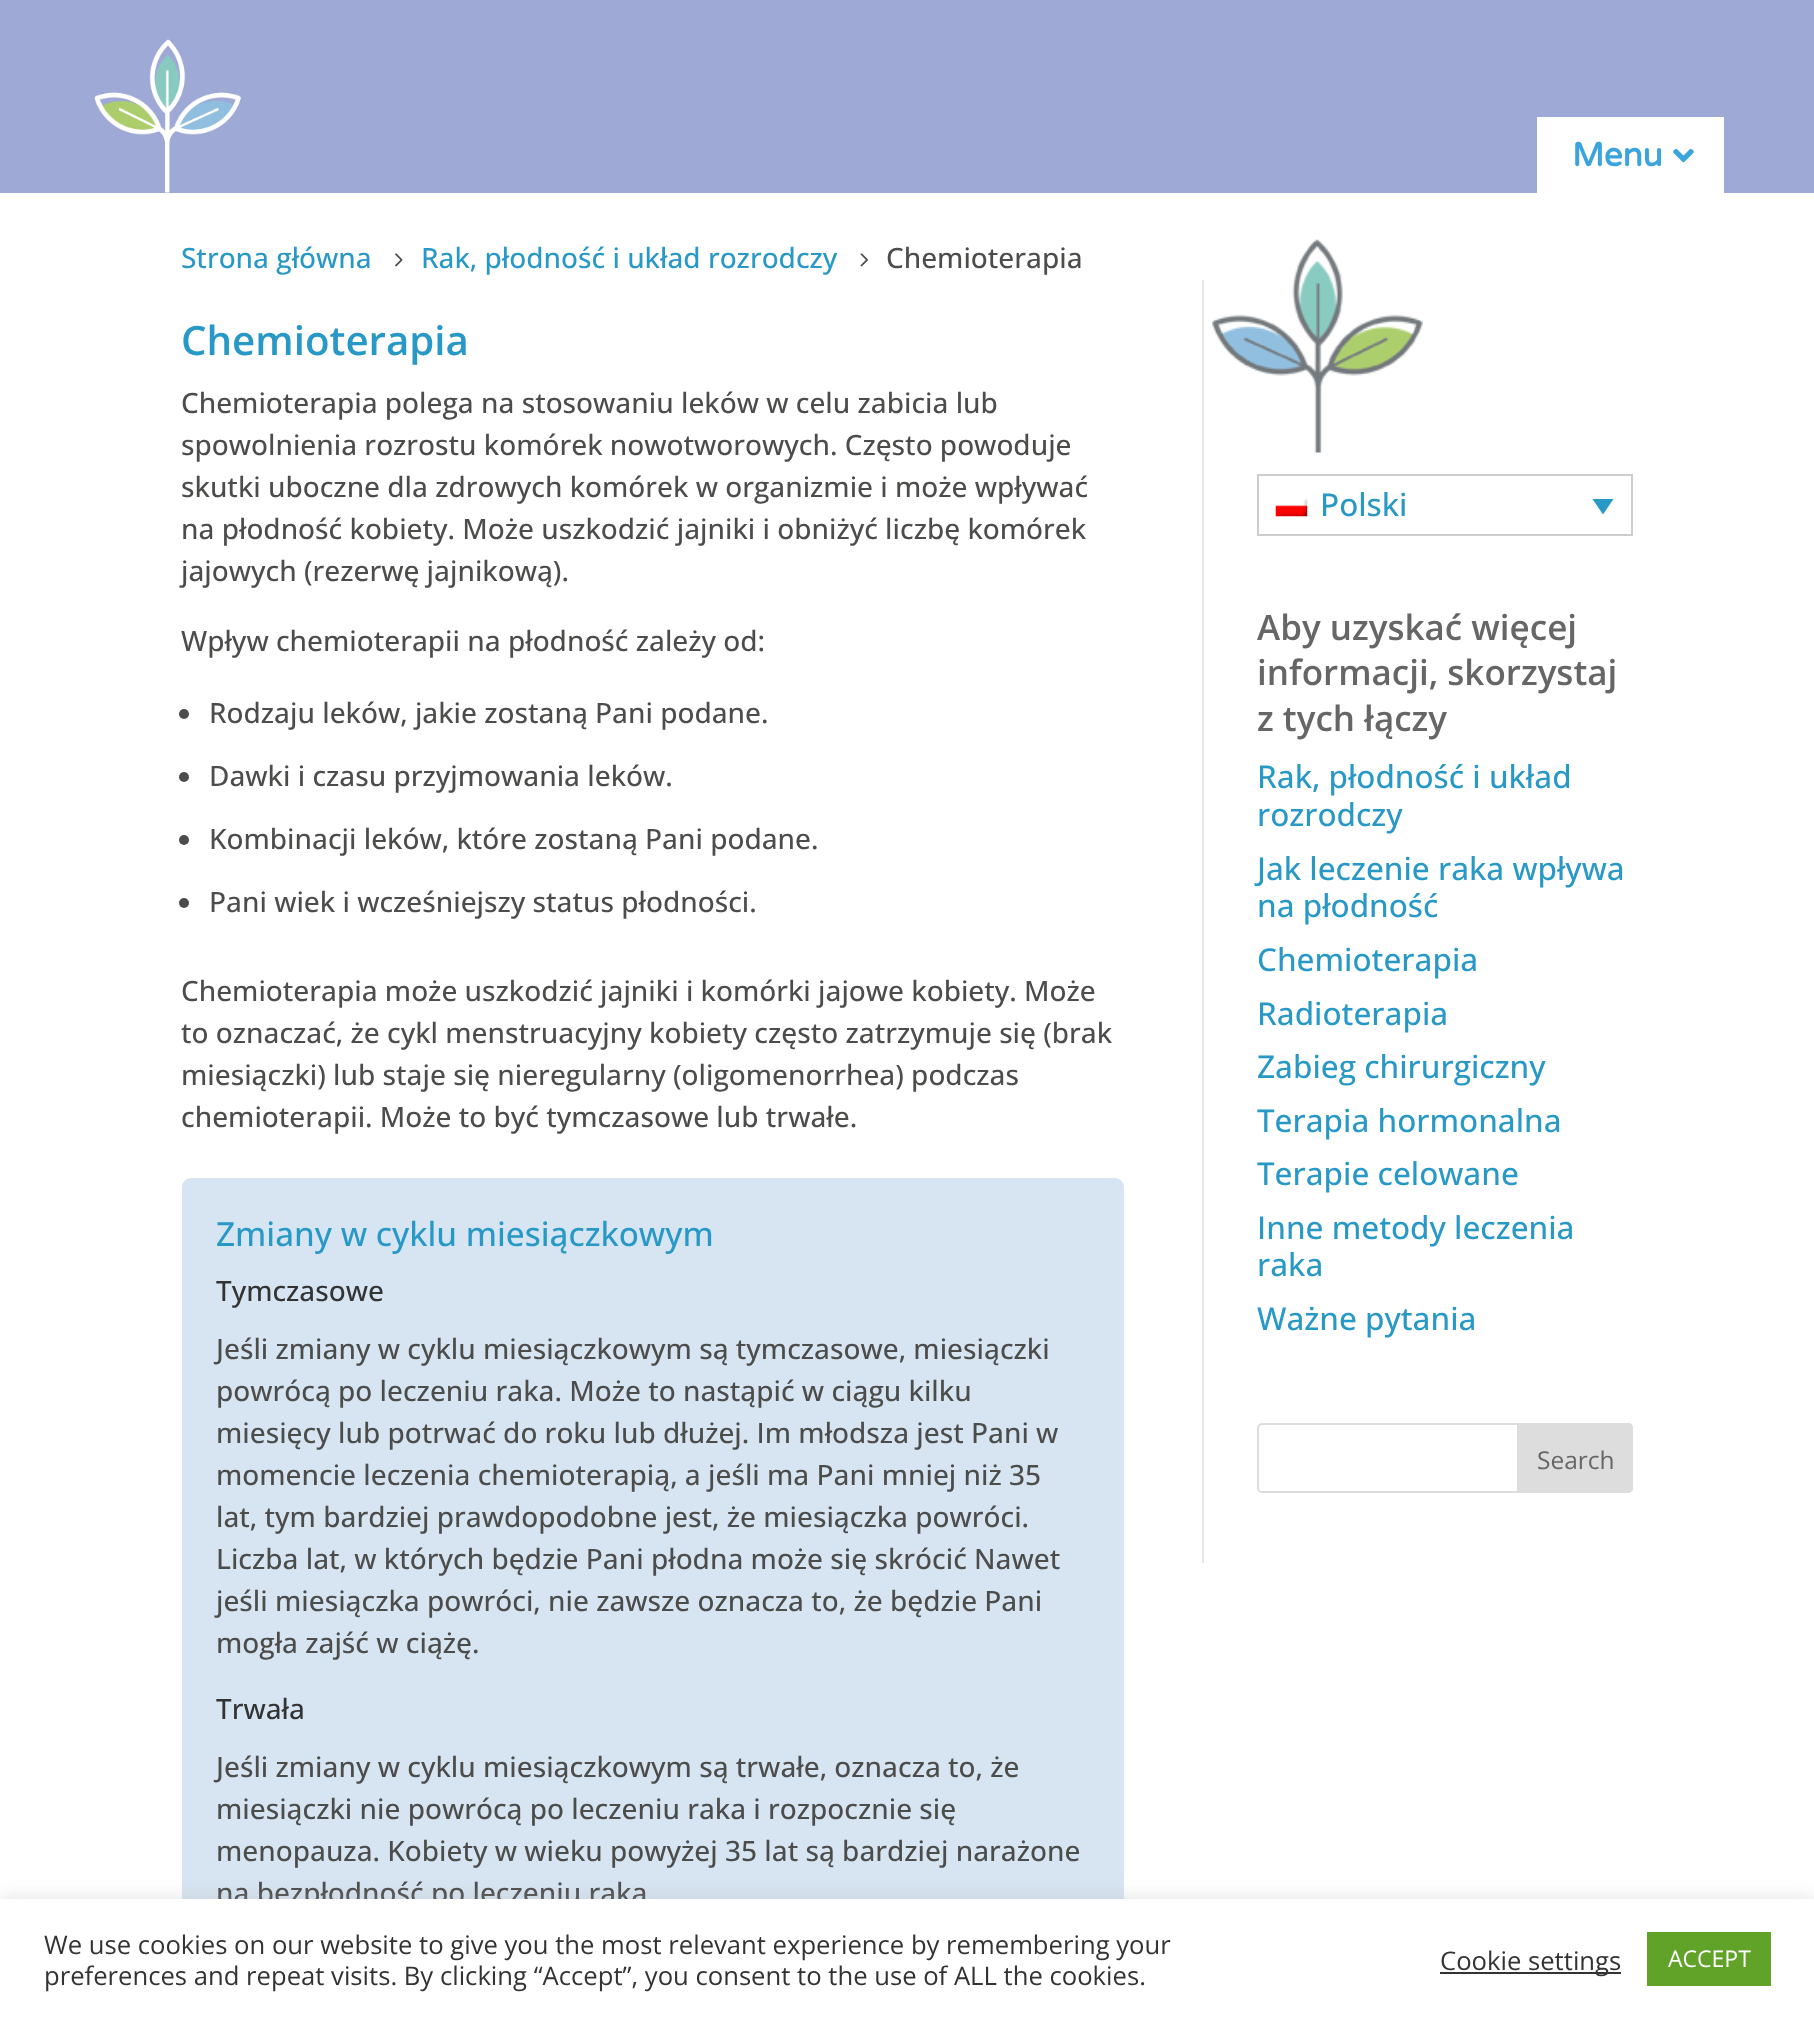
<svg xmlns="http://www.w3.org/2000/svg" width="1814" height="2018">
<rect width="100%" height="100%" fill="#fff"/>
<rect width="1814" height="193" fill="#9fa9d5"/>
<image x="94" y="39" width="147" height="154" href="media/1.png"/>
<rect x="1537" y="117" width="187" height="76" fill="#fff"/>
<text x="1572" y="166" style="font-family:Varela Round;font-size:33.25px;font-weight:bold;fill:#3ca4dd">Menu</text>
<image x="1673" y="148" width="21" height="15" href="media/2.png"/>
<text x="181" y="268" style="font-family:Open Sans;font-size:28px;font-weight:500;fill:#2898c6">Strona główna</text>
<image x="395" y="253" width="8" height="14" href="media/3.png"/>
<text x="421" y="268" style="font-family:Open Sans;font-size:28px;font-weight:500;fill:#2898c6">Rak, płodność i układ rozrodczy</text>
<image x="860" y="253" width="8" height="14" href="media/4.png"/>
<text x="886" y="268" style="font-family:Open Sans;font-size:28px;font-weight:500;fill:#4c4c4b">Chemioterapia</text>
<text x="181" y="355" style="font-family:Open Sans;font-size:40.25px;font-weight:600;fill:#2898c6">Chemioterapia</text>
<text x="181" y="413" style="font-family:Open Sans;font-size:28px;font-weight:500;fill:#4c4c4b">Chemioterapia polega na stosowaniu leków w celu zabicia lub</text>
<text x="181" y="455" style="font-family:Open Sans;font-size:28px;font-weight:500;fill:#4c4c4b">spowolnienia rozrostu komórek nowotworowych. Często powoduje</text>
<text x="181" y="497" style="font-family:Open Sans;font-size:28px;font-weight:500;fill:#4c4c4b">skutki uboczne dla zdrowych komórek w organizmie i może wpływać</text>
<text x="181" y="539" style="font-family:Open Sans;font-size:28px;font-weight:500;fill:#4c4c4b">na płodność kobiety. Może uszkodzić jajniki i obniżyć liczbę komórek</text>
<text x="181" y="581" style="font-family:Open Sans;font-size:28px;font-weight:500;fill:#4c4c4b">jajowych (rezerwę jajnikową).</text>
<text x="181" y="651" style="font-family:Open Sans;font-size:28px;font-weight:500;fill:#4c4c4b">Wpływ chemioterapii na płodność zależy od:</text>
<circle cx="184" cy="714" r="5" fill="#4c4c4b"/>
<text x="209" y="723" style="font-family:Open Sans;font-size:28px;font-weight:500;fill:#4c4c4b">Rodzaju leków, jakie zostaną Pani podane.</text>
<circle cx="184" cy="777" r="5" fill="#4c4c4b"/>
<text x="209" y="786" style="font-family:Open Sans;font-size:28px;font-weight:500;fill:#4c4c4b">Dawki i czasu przyjmowania leków.</text>
<circle cx="184" cy="840" r="5" fill="#4c4c4b"/>
<text x="209" y="849" style="font-family:Open Sans;font-size:28px;font-weight:500;fill:#4c4c4b">Kombinacji leków, które zostaną Pani podane.</text>
<circle cx="184" cy="903" r="5" fill="#4c4c4b"/>
<text x="209" y="912" style="font-family:Open Sans;font-size:28px;font-weight:500;fill:#4c4c4b">Pani wiek i wcześniejszy status płodności.</text>
<text x="181" y="1001" style="font-family:Open Sans;font-size:28px;font-weight:500;fill:#4c4c4b">Chemioterapia może uszkodzić jajniki i komórki jajowe kobiety. Może</text>
<text x="181" y="1043" style="font-family:Open Sans;font-size:28px;font-weight:500;fill:#4c4c4b">to oznaczać, że cykl menstruacyjny kobiety często zatrzymuje się (brak</text>
<text x="181" y="1085" style="font-family:Open Sans;font-size:28px;font-weight:500;fill:#4c4c4b">miesiączki) lub staje się nieregularny (oligomenorrhea) podczas</text>
<text x="181" y="1127" style="font-family:Open Sans;font-size:28px;font-weight:500;fill:#4c4c4b">chemioterapii. Może to być tymczasowe lub trwałe.</text>
<rect x="182" y="1178" width="942" height="770" rx="9" fill="#d7e5f2"/>
<text x="216" y="1246" style="font-family:Open Sans;font-size:33.25px;font-weight:500;fill:#2898c6">Zmiany w cyklu miesiączkowym</text>
<text x="216" y="1301" style="font-family:Open Sans;font-size:28px;font-weight:500;fill:#333">Tymczasowe</text>
<text x="216" y="1359" style="font-family:Open Sans;font-size:28px;font-weight:500;fill:#4c4c4b">Jeśli zmiany w cyklu miesiączkowym są tymczasowe, miesiączki</text>
<text x="216" y="1401" style="font-family:Open Sans;font-size:28px;font-weight:500;fill:#4c4c4b">powrócą po leczeniu raka. Może to nastąpić w ciągu kilku</text>
<text x="216" y="1443" style="font-family:Open Sans;font-size:28px;font-weight:500;fill:#4c4c4b">miesięcy lub potrwać do roku lub dłużej. Im młodsza jest Pani w</text>
<text x="216" y="1485" style="font-family:Open Sans;font-size:28px;font-weight:500;fill:#4c4c4b">momencie leczenia chemioterapią, a jeśli ma Pani mniej niż 35</text>
<text x="216" y="1527" style="font-family:Open Sans;font-size:28px;font-weight:500;fill:#4c4c4b">lat, tym bardziej prawdopodobne jest, że miesiączka powróci.</text>
<text x="216" y="1569" style="font-family:Open Sans;font-size:28px;font-weight:500;fill:#4c4c4b">Liczba lat, w których będzie Pani płodna może się skrócić Nawet</text>
<text x="216" y="1611" style="font-family:Open Sans;font-size:28px;font-weight:500;fill:#4c4c4b">jeśli miesiączka powróci, nie zawsze oznacza to, że będzie Pani</text>
<text x="216" y="1653" style="font-family:Open Sans;font-size:28px;font-weight:500;fill:#4c4c4b">mogła zajść w ciążę.</text>
<text x="216" y="1719" style="font-family:Open Sans;font-size:28px;font-weight:500;fill:#333">Trwała</text>
<text x="216" y="1777" style="font-family:Open Sans;font-size:28px;font-weight:500;fill:#4c4c4b">Jeśli zmiany w cyklu miesiączkowym są trwałe, oznacza to, że</text>
<text x="216" y="1819" style="font-family:Open Sans;font-size:28px;font-weight:500;fill:#4c4c4b">miesiączki nie powrócą po leczeniu raka i rozpocznie się</text>
<text x="216" y="1861" style="font-family:Open Sans;font-size:28px;font-weight:500;fill:#4c4c4b">menopauza. Kobiety w wieku powyżej 35 lat są bardziej narażone</text>
<text x="216" y="1903" style="font-family:Open Sans;font-size:28px;font-weight:500;fill:#4c4c4b">na bezpłodność po leczeniu raka</text>
<image x="1212" y="239" width="211" height="214" href="media/5.png"/>
<rect x="1202" y="280" width="2" height="1283" fill="#e6e6e6"/>
<rect x="1258" y="475" width="374" height="60" fill="none" stroke="#cdcdcd" stroke-width="2"/>
<image x="1275" y="498" width="33" height="19" href="media/6.png"/>
<text x="1320" y="516" style="font-family:Open Sans;font-size:31.5px;font-weight:500;fill:#2898c6">Polski</text>
<path d="M1592.5 499h21l-10.5 15.5z" fill="#2898c6"/>
<text x="1257" y="640" style="font-family:Open Sans;font-size:35px;font-weight:600;fill:#666">Aby uzyskać więcej</text>
<text x="1257" y="685" style="font-family:Open Sans;font-size:35px;font-weight:600;fill:#666">informacji, skorzystaj</text>
<text x="1257" y="731" style="font-family:Open Sans;font-size:35px;font-weight:600;fill:#666">z tych łączy</text>
<text x="1257" y="788" style="font-family:Open Sans;font-size:31.5px;font-weight:500;fill:#2898c6">Rak, płodność i układ</text>
<text x="1257" y="826" style="font-family:Open Sans;font-size:31.5px;font-weight:500;fill:#2898c6">rozrodczy</text>
<text x="1257" y="880" style="font-family:Open Sans;font-size:31.5px;font-weight:500;fill:#2898c6">Jak leczenie raka wpływa</text>
<text x="1257" y="917" style="font-family:Open Sans;font-size:31.5px;font-weight:500;fill:#2898c6">na płodność</text>
<text x="1257" y="971" style="font-family:Open Sans;font-size:31.5px;font-weight:500;fill:#2898c6">Chemioterapia</text>
<text x="1257" y="1025" style="font-family:Open Sans;font-size:31.5px;font-weight:500;fill:#2898c6">Radioterapia</text>
<text x="1257" y="1078" style="font-family:Open Sans;font-size:31.5px;font-weight:500;fill:#2898c6">Zabieg chirurgiczny</text>
<text x="1257" y="1132" style="font-family:Open Sans;font-size:31.5px;font-weight:500;fill:#2898c6">Terapia hormonalna</text>
<text x="1257" y="1185" style="font-family:Open Sans;font-size:31.5px;font-weight:500;fill:#2898c6">Terapie celowane</text>
<text x="1257" y="1239" style="font-family:Open Sans;font-size:31.5px;font-weight:500;fill:#2898c6">Inne metody leczenia</text>
<text x="1257" y="1276" style="font-family:Open Sans;font-size:31.5px;font-weight:500;fill:#2898c6">raka</text>
<text x="1257" y="1330" style="font-family:Open Sans;font-size:31.5px;font-weight:500;fill:#2898c6">Ważne pytania</text>
<rect x="1258" y="1424" width="374" height="68" rx="4" fill="none" stroke="#ddd" stroke-width="2"/>
<path d="M1518 1424h110c2 0 4 2 4 4v60c0 2-2 4-4 4h-110z" fill="#ddd" stroke="#ddd" stroke-width="2"/>
<text x="1537" y="1469" style="font-family:Open Sans;font-size:24.5px;fill:#666">Search</text>
<rect y="1897" width="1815" height="121" fill="#acabab4d" filter="blur(9px)"/>
<rect y="1899" width="1814" height="119" fill="#fff"/>
<text x="44" y="1954" style="font-family:Open Sans;font-size:25.65px;fill:#333">We use cookies on our website to give you the most relevant experience by remembering your</text>
<text x="44" y="1985" style="font-family:Open Sans;font-size:25.65px;fill:#333">preferences and repeat visits. By clicking “Accept”, you consent to the use of ALL the cookies.</text>
<rect x="1440" y="1972" width="181" height="2" fill="#333"/>
<text x="1440" y="1970" style="font-family:Open Sans;font-size:25.65px;fill:#333">Cookie settings</text>
<rect x="1647" y="1932" width="124" height="54" fill="#61a229"/>
<text x="1668" y="1967" style="font-family:Open Sans;font-size:23px;fill:#fff">ACCEPT</text>
</svg>
